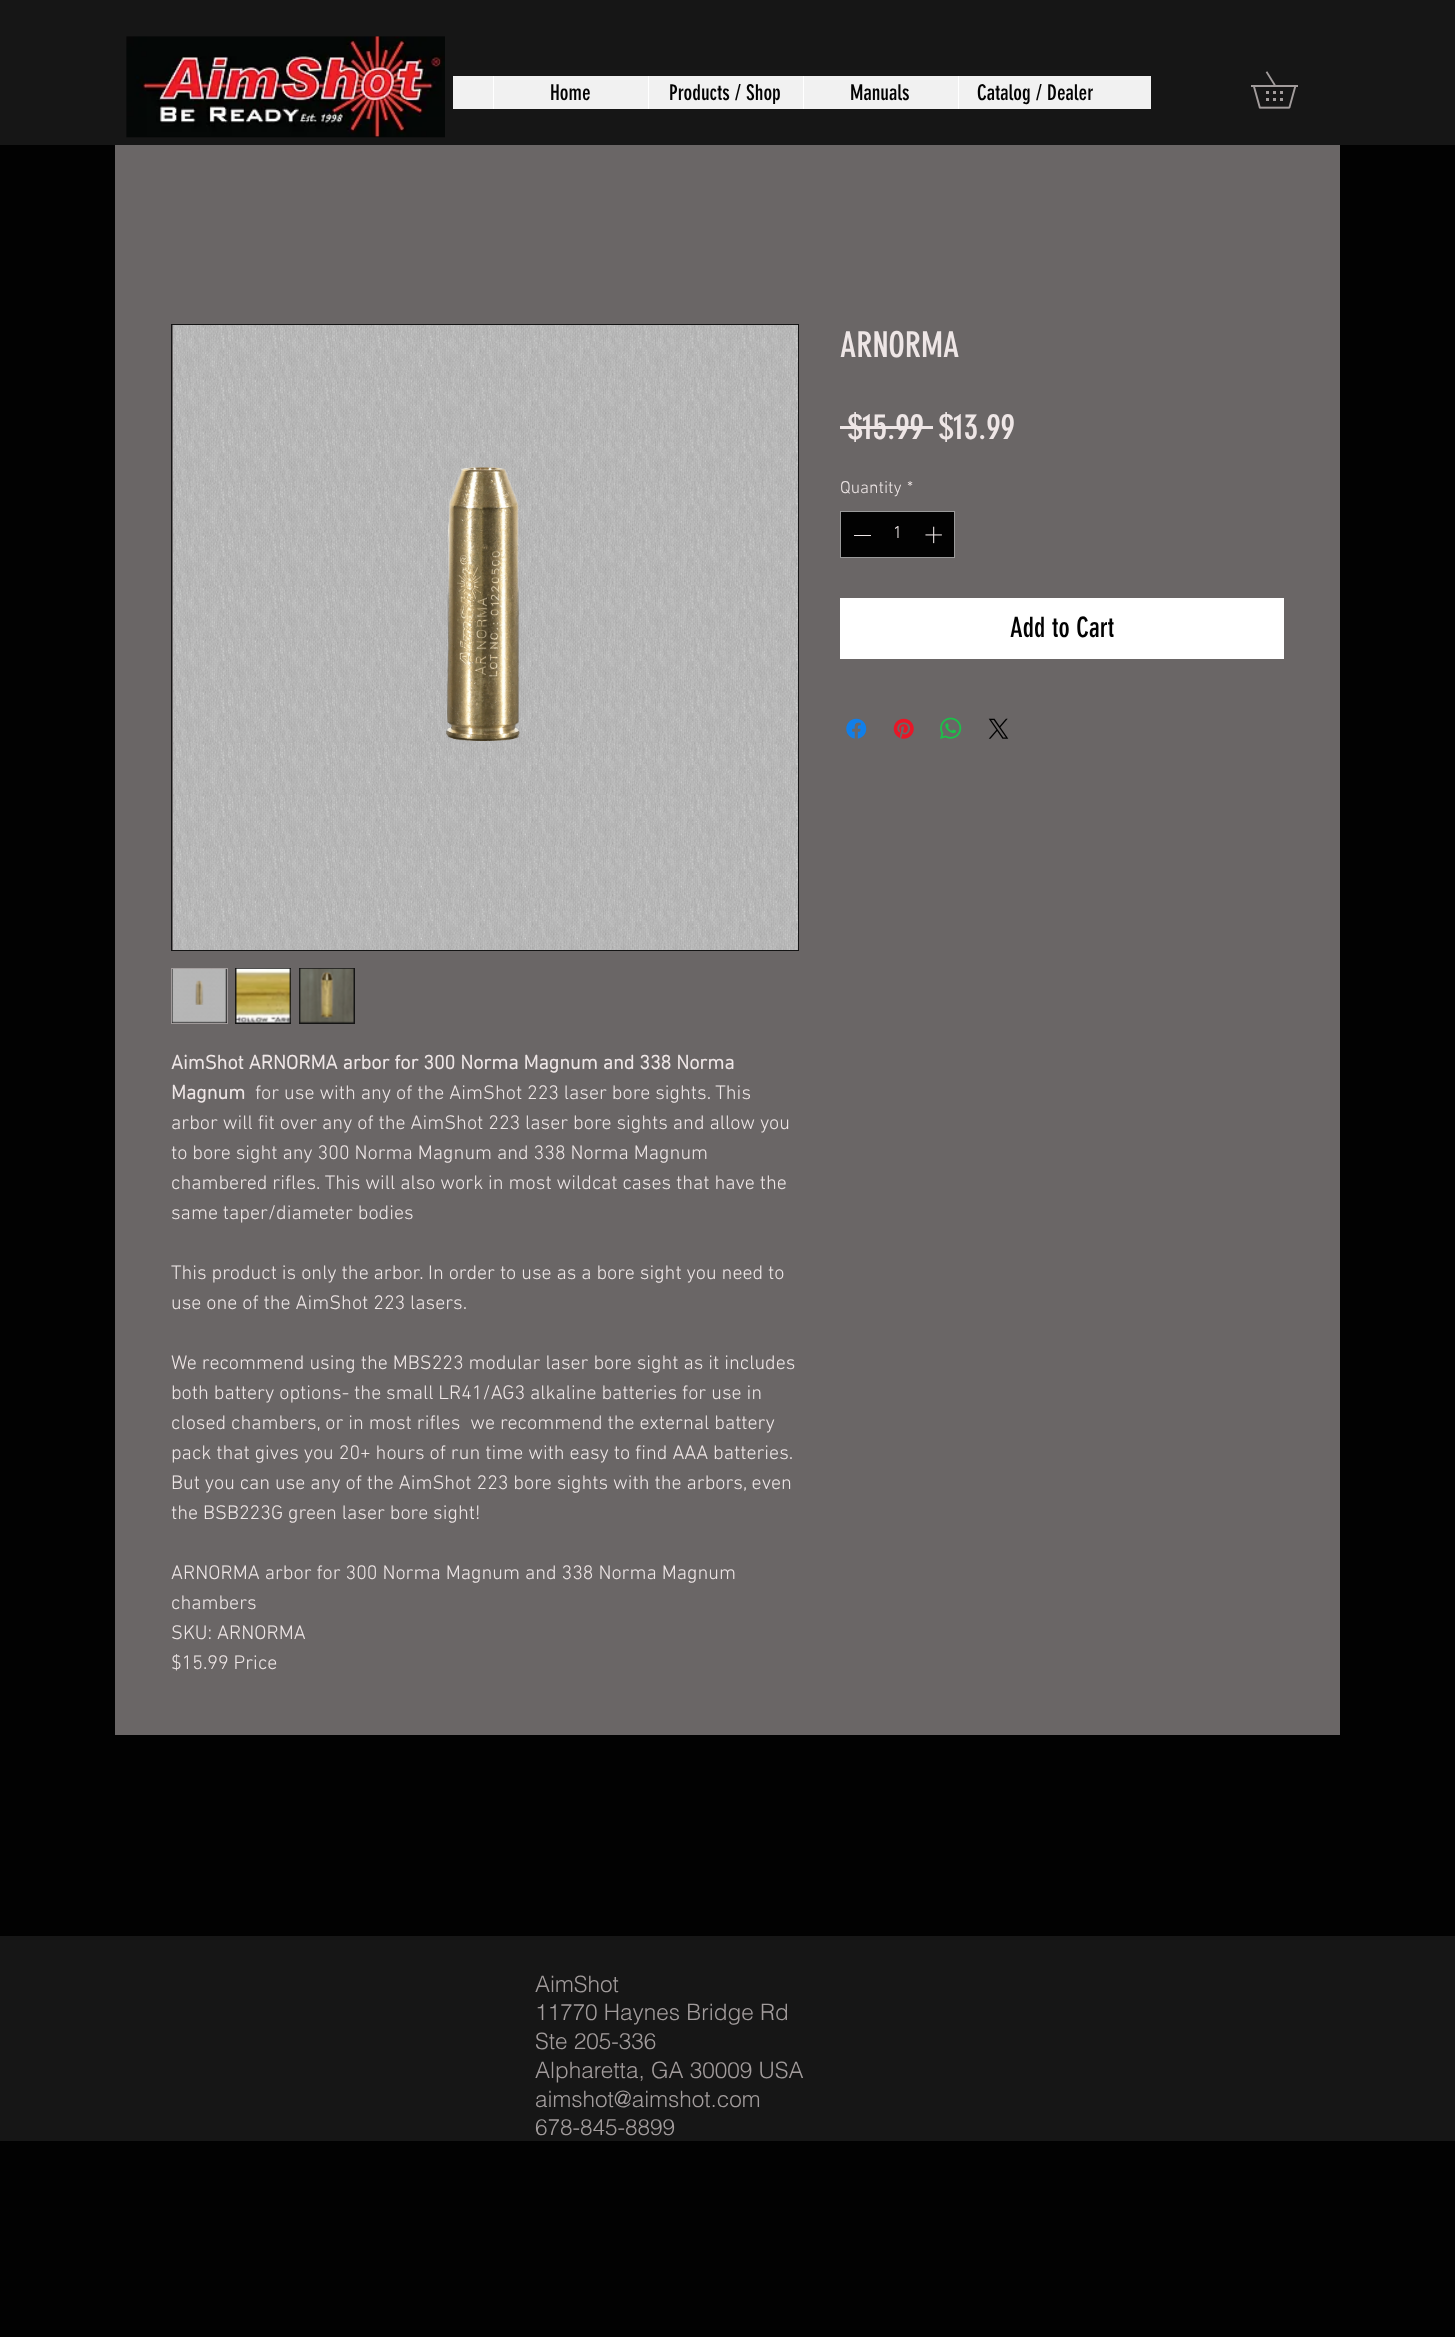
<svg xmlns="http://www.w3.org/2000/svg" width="1455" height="2337">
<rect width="100%" height="100%" fill="#020202"/>
<rect width="1455" height="145" fill="#161616"/>
<image x="126" y="36" width="319" height="102" href="media/1.png"/>
<rect x="453" y="76" width="698" height="33" fill="#f1f1f1"/>
<rect x="493" y="76" width="1" height="33" fill="#fff"/>
<text x="550" y="100" style="font-family:'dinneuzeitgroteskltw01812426';font-size:21.25px;fill:#020202">Home</text>
<rect x="648" y="76" width="1" height="33" fill="#fff"/>
<text x="669" y="100" style="font-family:'dinneuzeitgroteskltw01812426';font-size:21.25px;fill:#020202">Products / Shop</text>
<rect x="803" y="76" width="1" height="33" fill="#fff"/>
<text x="850" y="100" style="font-family:'dinneuzeitgroteskltw01812426';font-size:21.25px;fill:#020202">Manuals</text>
<rect x="958" y="76" width="1" height="33" fill="#fff"/>
<text x="977" y="100" style="font-family:'dinneuzeitgroteskltw01812426';font-size:21.25px;fill:#020202">Catalog / Dealer</text>
<image x="1251" y="71" width="47" height="38" href="media/2.png"/>
<rect x="115" y="145" width="1225" height="1590" fill="#6a6666"/>
<text x="840" y="357" style="font-family:'dinneuzeitgroteskltw01812426';font-size:35px;fill:#eee6e6">ARNORMA</text>
<text x="848" y="439" style="font-family:'dinneuzeitgroteskltw01812426';font-size:35px;fill:#eee6e6">$15.99</text>
<rect x="840" y="426" width="93" height="3" fill="#eee6e6"/>
<text x="939" y="439" style="font-family:'dinneuzeitgroteskltw01812426';font-size:35px;fill:#eee6e6">$13.99</text>
<text x="840" y="493" style="font-family:'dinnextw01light';font-size:17.5px;font-weight:300;fill:#eee6e6">Quantity</text>
<text x="907" y="493" style="font-family:'dinnextw01light';font-size:17.5px;font-weight:300;fill:#eee6e6">*</text>
<rect x="840.5" y="511.5" width="114" height="46" fill="#020202" stroke="#9a9a9a"/>
<rect x="854" y="535" width="17" height="1" fill="#eee6e6"/>
<text x="893" y="538" style="font-family:'dinnextw01light';font-size:17.5px;font-weight:300;fill:#eee6e6">1</text>
<image x="925" y="526" width="17" height="18" href="media/3.png"/>
<rect x="840" y="598" width="444" height="61" fill="#fff"/>
<text x="1010" y="637" style="font-family:'dinneuzeitgroteskltw01812426';font-size:27.5px;fill:#020202">Add to Cart</text>
<image x="846" y="718" width="21" height="21" href="media/4.png"/>
<image x="893" y="718" width="21" height="21" href="media/5.png"/>
<image x="940" y="717" width="22" height="22" href="media/6.png"/>
<image x="988" y="718" width="21" height="21" href="media/7.png"/>
<rect x="171.5" y="324.5" width="627" height="626" fill="none" stroke="#141414"/>
<image x="173" y="325" width="625" height="625" href="media/8.png"/>
<rect x="171.5" y="968.5" width="56" height="55" fill="#141414" stroke="#9f9999"/>
<image x="172" y="968" width="55" height="55" href="media/9.png"/>
<rect x="235" y="968" width="56" height="56" fill="#141414"/>
<image x="235" y="968" width="56" height="55" href="media/10.png"/>
<rect x="299" y="968" width="56" height="56" fill="#141414"/>
<image x="299" y="968" width="55" height="55" href="media/11.png"/>
<text x="171" y="1069" style="font-family:'dinnextw01light';font-size:20px;font-weight:bold;fill:#eee6e6">AimShot ARNORMA arbor for 300 Norma Magnum and 338 Norma</text>
<text x="171" y="1099" style="font-family:'dinnextw01light';font-size:20px;font-weight:bold;fill:#eee6e6">Magnum</text>
<text x="255" y="1099" style="font-family:'dinnextw01light';font-size:20px;font-weight:300;fill:#eee6e6">for use with any of the AimShot 223 laser bore sights. This</text>
<text x="171" y="1129" style="font-family:'dinnextw01light';font-size:20px;font-weight:300;fill:#eee6e6">arbor will fit over any of the AimShot 223 laser bore sights and allow you</text>
<text x="171" y="1159" style="font-family:'dinnextw01light';font-size:20px;font-weight:300;fill:#eee6e6">to bore sight any 300 Norma Magnum and 338 Norma Magnum</text>
<text x="171" y="1189" style="font-family:'dinnextw01light';font-size:20px;font-weight:300;fill:#eee6e6">chambered rifles. This will also work in most wildcat cases that have the</text>
<text x="171" y="1219" style="font-family:'dinnextw01light';font-size:20px;font-weight:300;fill:#eee6e6">same taper/diameter bodies</text>
<text x="171" y="1279" style="font-family:'dinnextw01light';font-size:20px;font-weight:300;fill:#eee6e6">This product is only the arbor. In order to use as a bore sight you need to</text>
<text x="171" y="1309" style="font-family:'dinnextw01light';font-size:20px;font-weight:300;fill:#eee6e6">use one of the AimShot 223 lasers.</text>
<text x="171" y="1369" style="font-family:'dinnextw01light';font-size:20px;font-weight:300;fill:#eee6e6">We recommend using the MBS223 modular laser bore sight as it includes</text>
<text x="171" y="1399" style="font-family:'dinnextw01light';font-size:20px;font-weight:300;fill:#eee6e6">both battery options- the small LR41/AG3 alkaline batteries for use in</text>
<text x="171" y="1429" style="font-family:'dinnextw01light';font-size:20px;font-weight:300;fill:#eee6e6" xml:space="preserve">closed chambers, or in most rifles  we recommend the external battery</text>
<text x="171" y="1459" style="font-family:'dinnextw01light';font-size:20px;font-weight:300;fill:#eee6e6">pack that gives you 20+ hours of run time with easy to find AAA batteries.</text>
<text x="171" y="1489" style="font-family:'dinnextw01light';font-size:20px;font-weight:300;fill:#eee6e6">But you can use any of the AimShot 223 bore sights with the arbors, even</text>
<text x="171" y="1519" style="font-family:'dinnextw01light';font-size:20px;font-weight:300;fill:#eee6e6">the BSB223G green laser bore sight!</text>
<text x="171" y="1579" style="font-family:'dinnextw01light';font-size:20px;font-weight:300;fill:#eee6e6">ARNORMA arbor for 300 Norma Magnum and 338 Norma Magnum</text>
<text x="171" y="1609" style="font-family:'dinnextw01light';font-size:20px;font-weight:300;fill:#eee6e6">chambers</text>
<text x="171" y="1639" style="font-family:'dinnextw01light';font-size:20px;font-weight:300;fill:#eee6e6">SKU: ARNORMA</text>
<text x="171" y="1669" style="font-family:'dinnextw01light';font-size:20px;font-weight:300;fill:#eee6e6">$15.99 Price</text>
<rect y="1936" width="1455" height="205" fill="#161616"/>
<text x="535" y="1992" style="font-family:helvetica;font-size:22.5px;font-weight:300;fill:#a29c9c">AimShot</text>
<text x="535" y="2020" style="font-family:helvetica;font-size:22.5px;font-weight:300;fill:#a29c9c">11770 Haynes Bridge Rd</text>
<text x="535" y="2049" style="font-family:helvetica;font-size:22.5px;font-weight:300;fill:#a29c9c">Ste 205-336</text>
<text x="535" y="2078" style="font-family:helvetica;font-size:22.5px;font-weight:300;fill:#a29c9c">Alpharetta, GA 30009 USA</text>
<text x="535" y="2107" style="font-family:helvetica;font-size:22.5px;font-weight:300;fill:#a29c9c">aimshot@aimshot.com</text>
<text x="535" y="2135" style="font-family:helvetica;font-size:22.5px;font-weight:300;fill:#a29c9c">678-845-8899</text>
</svg>
